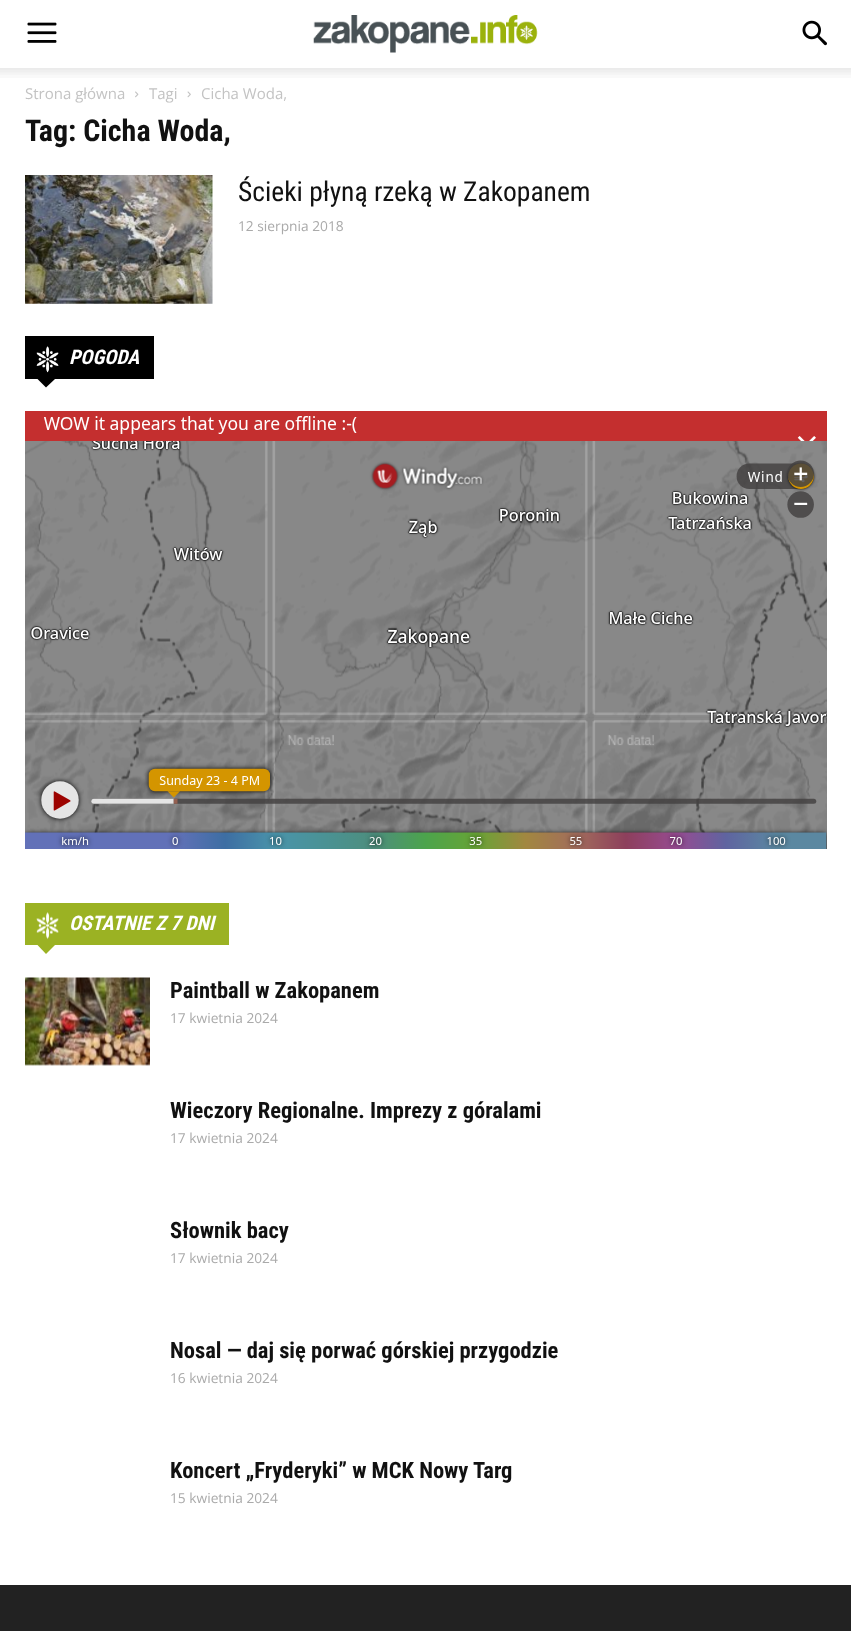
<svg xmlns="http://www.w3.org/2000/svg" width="851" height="1631">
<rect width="100%" height="100%" fill="#fff"/>
<image x="27" y="22" width="30" height="21" href="media/1.png"/>
<image x="313" y="15" width="225" height="38" href="media/2.png"/>
<image x="802" y="20" width="25" height="26" href="media/3.png"/>
<image x="0" y="68" width="851" height="10" href="media/4.png"/>
<text x="25" y="99" style="font-family:Open Sans;font-size:15px;fill:#c3c3c3">Strona główna</text>
<image x="135" y="91" width="4" height="7" href="media/5.png"/>
<text x="149" y="99" style="font-family:Open Sans;font-size:15px;fill:#c3c3c3">Tagi</text>
<image x="187" y="91" width="4" height="7" href="media/6.png"/>
<text x="201" y="99" style="font-family:Open Sans;font-size:15px;fill:#c3c3c3">Cicha Woda,</text>
<text x="25" y="141" style="font-family:Roboto Condensed;font-size:30px;font-weight:bold;fill:#111">Tag: Cicha Woda,</text>
<image x="25" y="175" width="188" height="129" href="media/7.png"/>
<text x="238" y="201" style="font-family:Roboto Condensed;font-size:27.5px;fill:#111">Ścieki płyną rzeką w Zakopanem</text>
<text x="238" y="231" style="font-family:Open Sans;font-size:13.75px;fill:#aaa">12 sierpnia 2018</text>
<rect x="25" y="336" width="129" height="43" fill="#000"/>
<image x="36" y="346" width="23" height="27" href="media/8.png"/>
<text x="69" y="364" style="font-family:Roboto Condensed;font-size:20px;font-weight:bold;font-style:italic;fill:#fff">POGODA</text>
<path d="M37.5 379h17.5l-9 8.5z" fill="#000"/>
<image x="25" y="411" width="802" height="438" href="media/9.png"/>
<rect x="25" y="903" width="204" height="42" fill="#9bb223"/>
<image x="36" y="912" width="23" height="28" href="media/10.png"/>
<text x="69" y="930" style="font-family:Roboto Condensed;font-size:20px;font-weight:bold;font-style:italic;fill:#fff">OSTATNIE Z 7 DNI</text>
<path d="M37.5 945h17.5l-9 9z" fill="#9bb223"/>
<image x="25" y="977" width="125" height="89" href="media/11.png"/>
<text x="170" y="998" style="font-family:Roboto Condensed;font-size:22.5px;font-weight:bold;fill:#111">Paintball w Zakopanem</text>
<text x="170" y="1023" style="font-family:Open Sans;font-size:13.75px;fill:#aaa">17 kwietnia 2024</text>
<text x="170" y="1118" style="font-family:Roboto Condensed;font-size:22.5px;font-weight:bold;fill:#111">Wieczory Regionalne. Imprezy z góralami</text>
<text x="170" y="1143" style="font-family:Open Sans;font-size:13.75px;fill:#aaa">17 kwietnia 2024</text>
<text x="170" y="1238" style="font-family:Roboto Condensed;font-size:22.5px;font-weight:bold;fill:#111">Słownik bacy</text>
<text x="170" y="1263" style="font-family:Open Sans;font-size:13.75px;fill:#aaa">17 kwietnia 2024</text>
<text x="170" y="1358" style="font-family:Roboto Condensed;font-size:22.5px;font-weight:bold;fill:#111">Nosal — daj się porwać górskiej przygodzie</text>
<text x="170" y="1383" style="font-family:Open Sans;font-size:13.75px;fill:#aaa">16 kwietnia 2024</text>
<text x="170" y="1478" style="font-family:Roboto Condensed;font-size:22.5px;font-weight:bold;fill:#111">Koncert „Fryderyki” w MCK Nowy Targ</text>
<text x="170" y="1503" style="font-family:Open Sans;font-size:13.75px;fill:#aaa">15 kwietnia 2024</text>
<rect y="1585" width="851" height="46" fill="#222"/>
</svg>
